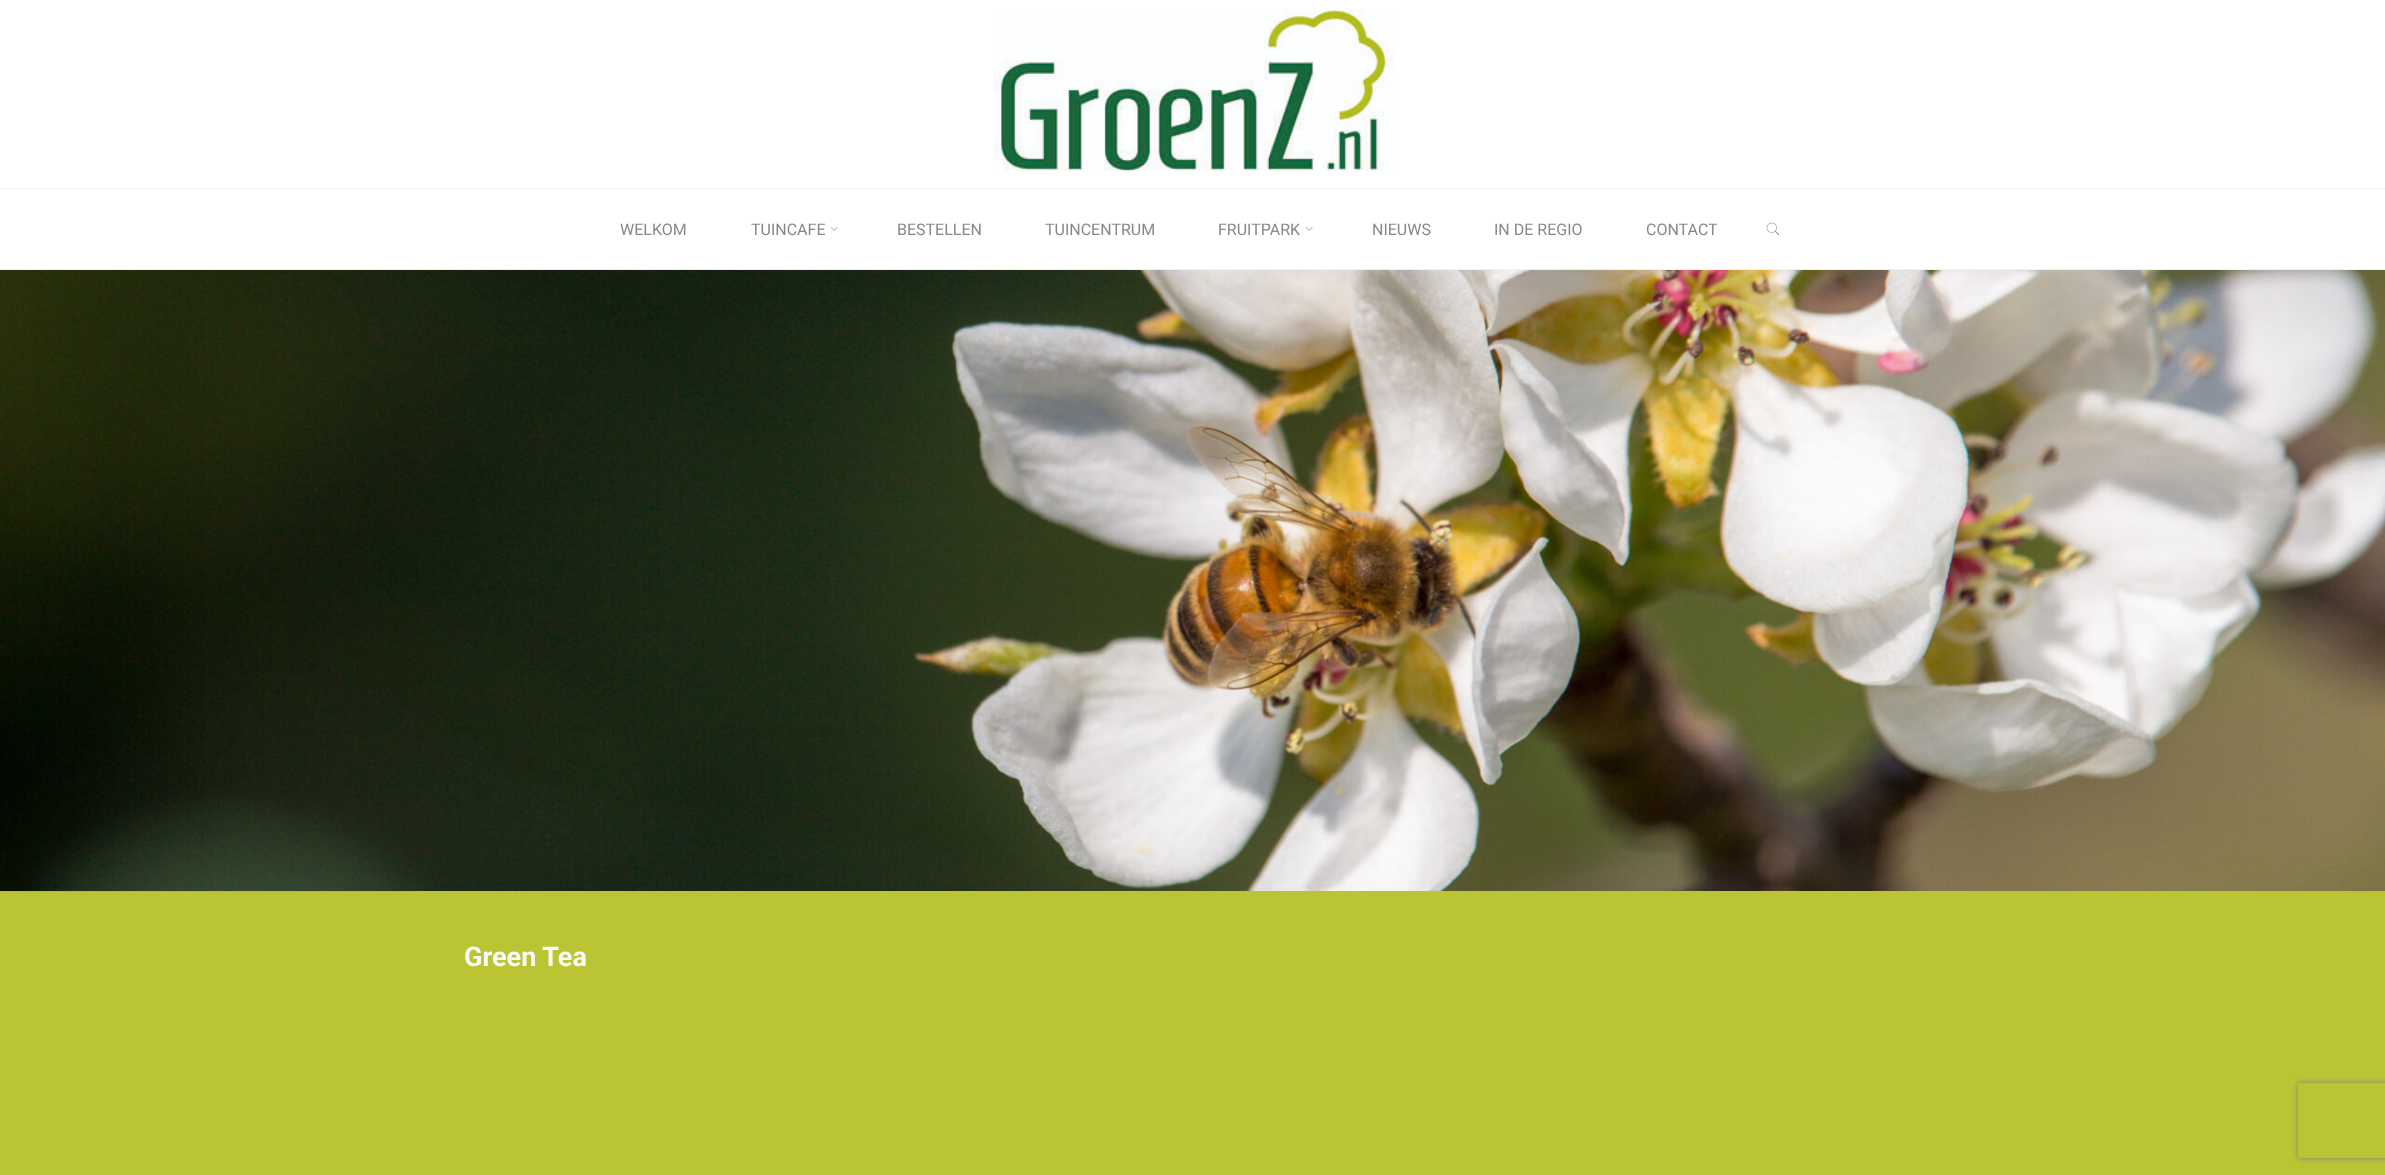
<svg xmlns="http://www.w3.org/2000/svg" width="2385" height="1175">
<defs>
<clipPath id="clip1"><path d="M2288 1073h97v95h-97zm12.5 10h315c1.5 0 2.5 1 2.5 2.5v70c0 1.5-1 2.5-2.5 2.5h-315c-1.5 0-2.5-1-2.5-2.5v-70c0-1.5 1-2.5 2.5-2.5z" clip-rule="evenodd"/></clipPath>
</defs>
<rect width="100%" height="100%" fill="#bbc534"/>
<rect width="2385" height="269" fill="#fff"/>
<image x="993" y="9" width="401" height="162" href="media/1.png"/>
<rect y="188" width="2385" height="1" fill="#f2f2f2"/>
<rect y="269" width="2385" height="1" fill="#f2f2f2"/>
<text x="620" y="235" style="font-family:Roboto;font-size:16px;fill:#888">WELKOM</text>
<text x="751" y="235" style="font-family:Roboto;font-size:16px;fill:#888">TUINCAFE</text>
<image x="830" y="227" width="8" height="4" href="media/2.png"/>
<text x="897" y="235" style="font-family:Roboto;font-size:16px;fill:#888">BESTELLEN</text>
<text x="1045" y="235" style="font-family:Roboto;font-size:16px;fill:#888">TUINCENTRUM</text>
<text x="1218" y="235" style="font-family:Roboto;font-size:16px;fill:#888">FRUITPARK</text>
<image x="1305" y="227" width="8" height="4" href="media/2.png"/>
<text x="1372" y="235" style="font-family:Roboto;font-size:16px;fill:#888">NIEUWS</text>
<text x="1494" y="235" style="font-family:Roboto;font-size:16px;fill:#888">IN DE REGIO</text>
<text x="1646" y="235" style="font-family:Roboto;font-size:16px;fill:#888">CONTACT</text>
<image x="1766" y="222" width="14" height="14" href="media/3.png"/>
<image x="0" y="270" width="2385" height="622" href="media/4.png"/>
<rect x="418" y="891" width="1550" height="1" fill="#bbc534"/>
<text x="464" y="966" style="font-family:Roboto;font-size:27px;font-weight:bold;fill:#f9f9f9">Green Tea</text>
<g clip-path="url(#clip1)">
<rect x="2298" y="1083" width="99" height="75" rx="2.5" fill="#808080" filter="blur(3px)"/>
</g>
</svg>
